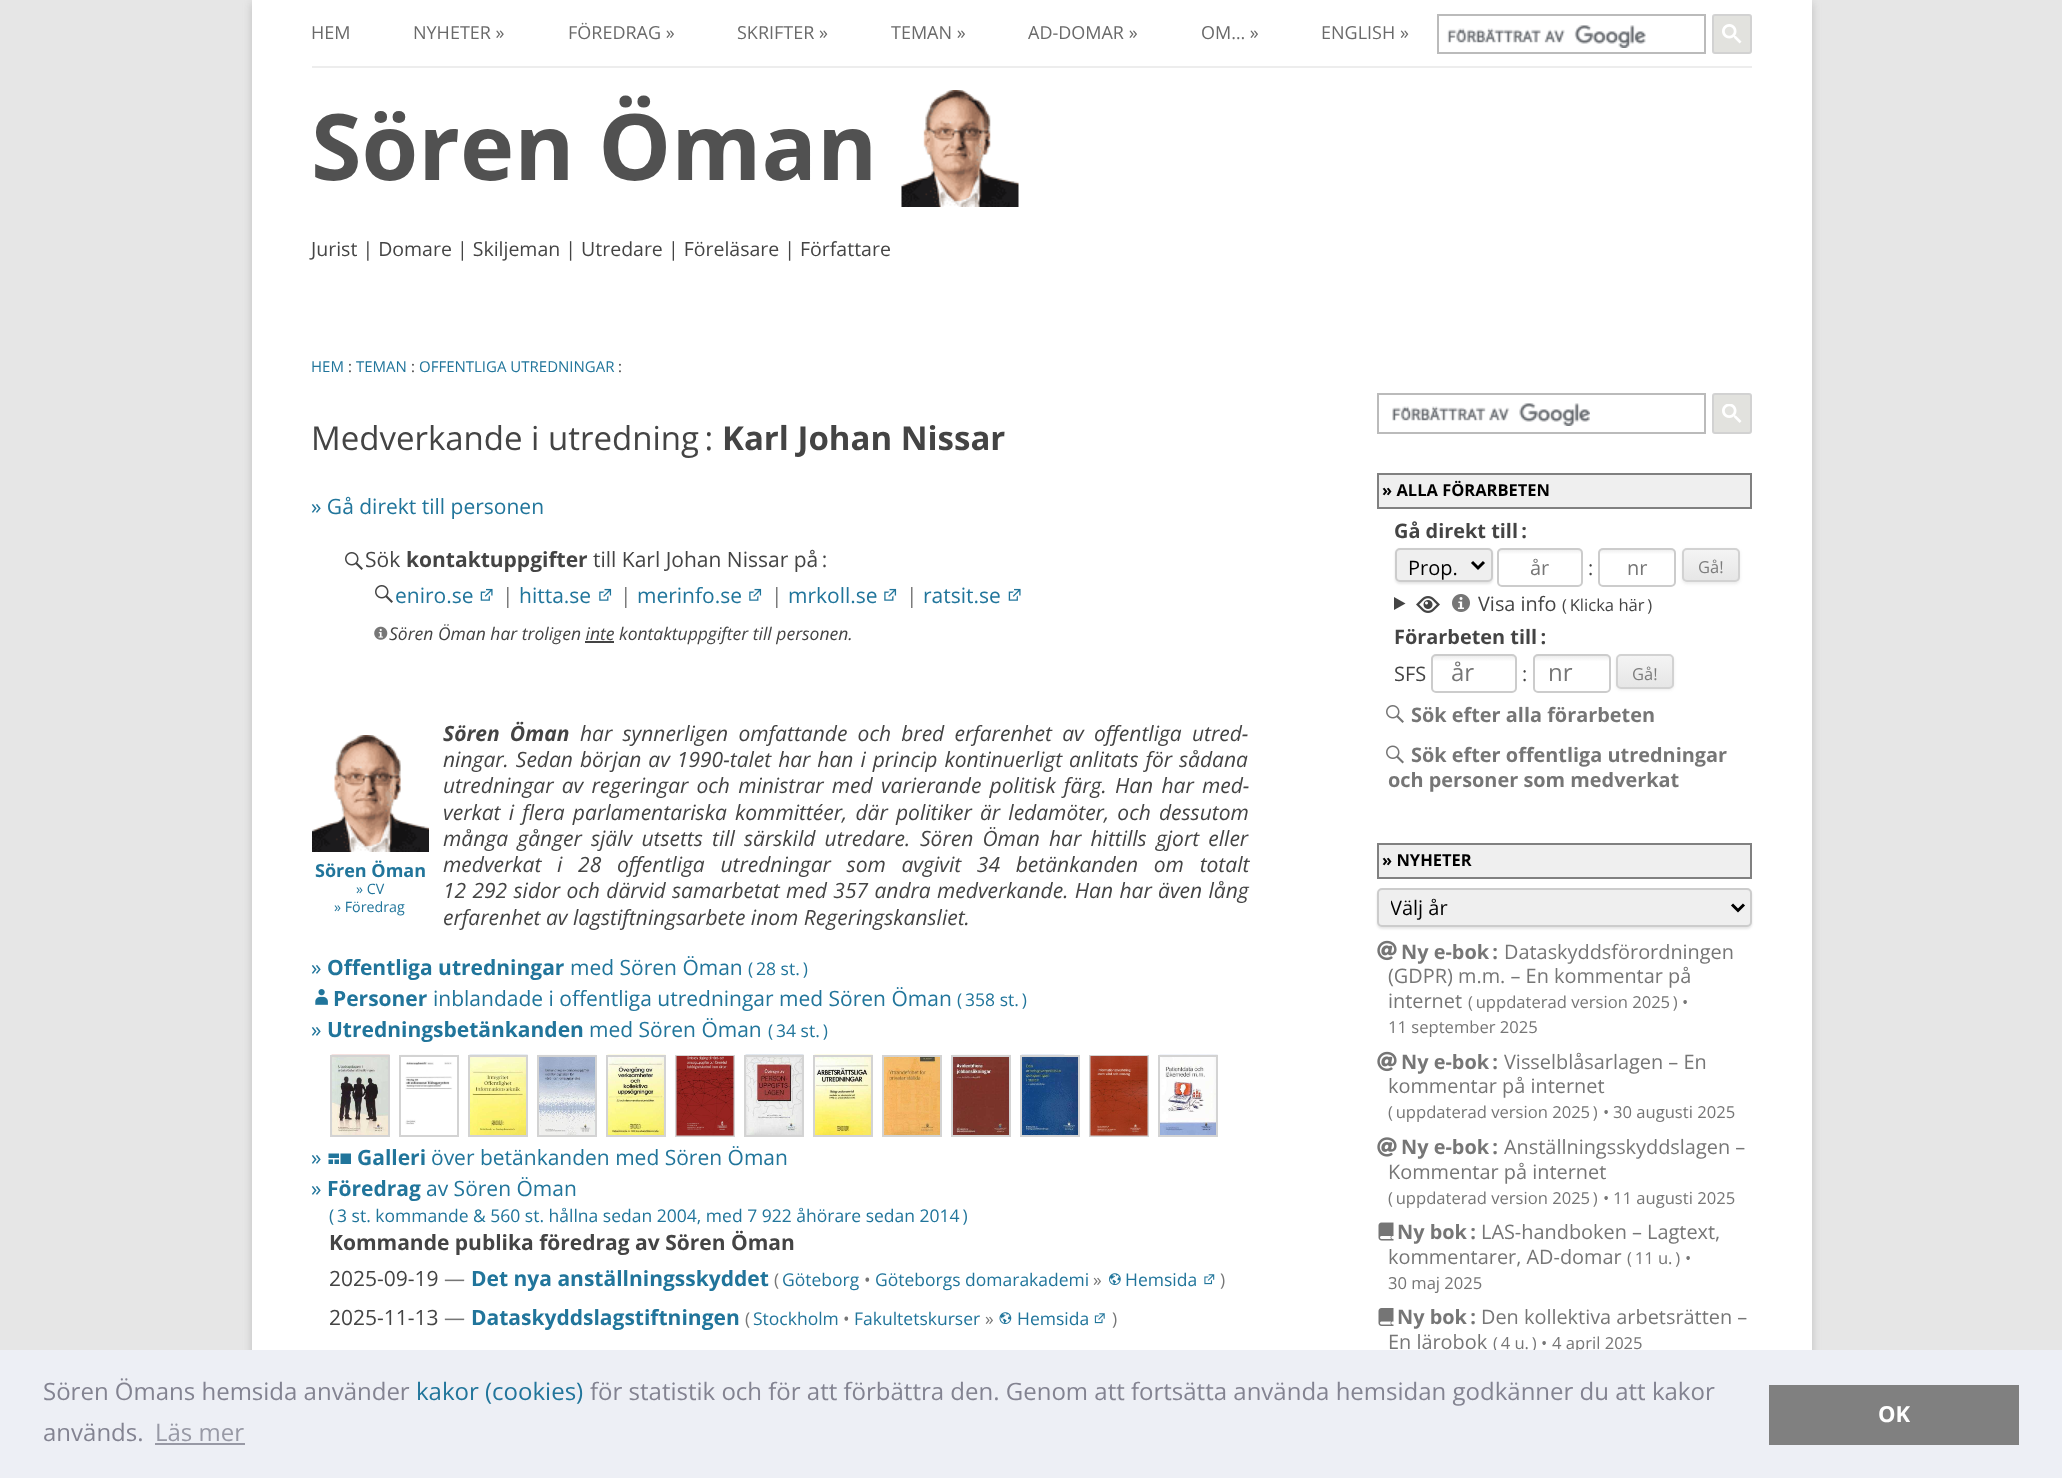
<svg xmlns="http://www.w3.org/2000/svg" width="2062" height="1478">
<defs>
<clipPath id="clip1"><rect x="1497" y="548" width="86" height="39" rx="5"/></clipPath>
<linearGradient id="g1" gradientUnits="userSpaceOnUse" x1="1540" y1="549" x2="1540" y2="585"><stop offset="0.01" stop-color="#eee"/><stop offset="0.15" stop-color="#fff"/></linearGradient>
<clipPath id="clip2"><rect x="1598" y="548" width="78" height="39" rx="5"/></clipPath>
<linearGradient id="g2" gradientUnits="userSpaceOnUse" x1="1637" y1="549" x2="1637" y2="585"><stop offset="0.01" stop-color="#eee"/><stop offset="0.15" stop-color="#fff"/></linearGradient>
<clipPath id="clip3"><rect x="1682" y="548" width="58" height="34" rx="5"/></clipPath>
<linearGradient id="g3" gradientUnits="userSpaceOnUse" x1="1711" y1="549" x2="1711" y2="581"><stop offset="0" stop-color="#f4f4f4"/><stop offset="1" stop-color="#e6e6e6"/></linearGradient>
<clipPath id="clip4"><rect x="1431" y="654" width="86" height="39" rx="5"/></clipPath>
<linearGradient id="g4" gradientUnits="userSpaceOnUse" x1="1474" y1="656" x2="1474" y2="692"><stop offset="0.01" stop-color="#eee"/><stop offset="0.15" stop-color="#fff"/></linearGradient>
<clipPath id="clip5"><rect x="1533" y="654" width="78" height="39" rx="5"/></clipPath>
<linearGradient id="g5" gradientUnits="userSpaceOnUse" x1="1572" y1="656" x2="1572" y2="692"><stop offset="0.01" stop-color="#eee"/><stop offset="0.15" stop-color="#fff"/></linearGradient>
<clipPath id="clip6"><rect x="1616" y="654" width="58" height="35" rx="5"/></clipPath>
<linearGradient id="g6" gradientUnits="userSpaceOnUse" x1="1645" y1="656" x2="1645" y2="687"><stop offset="0" stop-color="#f4f4f4"/><stop offset="1" stop-color="#e6e6e6"/></linearGradient>
<clipPath id="clip7"><rect x="1391" y="893" width="330" height="30"/></clipPath>
</defs>
<rect width="100%" height="100%" fill="#e6e6e6"/>
<rect x="252" y="3" width="1560" height="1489" fill="#6464644d" filter="blur(4.5px)"/>
<rect x="252" width="1560" height="1350" fill="#fff"/>
<rect x="312" y="66" width="1440" height="2" fill="#ededed"/>
<text x="311" y="39" style="font-family:Open Sans;font-size:18px;fill:#6a6a6a">HEM</text>
<text x="413" y="39" style="font-family:Open Sans;font-size:18px;fill:#6a6a6a">NYHETER »</text>
<text x="568" y="39" style="font-family:Open Sans;font-size:18px;fill:#6a6a6a">FÖREDRAG »</text>
<text x="737" y="39" style="font-family:Open Sans;font-size:18px;fill:#6a6a6a">SKRIFTER »</text>
<text x="891" y="39" style="font-family:Open Sans;font-size:18px;fill:#6a6a6a">TEMAN »</text>
<text x="1028" y="39" style="font-family:Open Sans;font-size:18px;fill:#6a6a6a">AD-DOMAR »</text>
<text x="1201" y="39" style="font-family:Open Sans;font-size:18px;fill:#6a6a6a">OM… »</text>
<text x="1321" y="39" style="font-family:Open Sans;font-size:18px;fill:#6a6a6a">ENGLISH »</text>
<rect x="1438" y="15" width="267" height="38" fill="none" stroke="#bbb" stroke-width="2"/>
<image x="1447" y="25" width="199" height="23" href="media/1.png"/>
<rect x="1713" y="15" width="38" height="38" rx="2" fill="#e2e2de" stroke="#d2d2d2" stroke-width="2"/>
<image x="1722" y="24" width="20" height="20" href="media/2.png"/>
<text x="311" y="180" style="font-family:Open Sans;font-size:91.75px;font-weight:bold;fill:#515151">Sören Öman</text>
<image x="901" y="90" width="118" height="117" href="media/3.png"/>
<text x="311" y="256" style="font-family:Open Sans;font-size:19.5px;fill:#444">Jurist | Domare | Skiljeman | Utredare | Föreläsare | Författare</text>
<text x="311" y="372" style="font-family:Open Sans;font-size:15px;fill:#21759b">HEM</text>
<text x="348" y="372" style="font-family:Open Sans;font-size:15px;fill:#444">:</text>
<text x="356" y="372" style="font-family:Open Sans;font-size:15px;fill:#21759b">TEMAN</text>
<text x="411" y="372" style="font-family:Open Sans;font-size:15px;fill:#444">:</text>
<text x="419" y="372" style="font-family:Open Sans;font-size:15px;fill:#21759b">OFFENTLIGA UTREDNINGAR</text>
<text x="618" y="372" style="font-family:Open Sans;font-size:15px;fill:#444">:</text>
<text x="311" y="450" style="font-family:Open Sans;font-size:33px;fill:#444">Medverkande i utredning :</text>
<text x="722" y="450" style="font-family:Open Sans;font-size:33px;font-weight:bold;fill:#444">Karl Johan Nissar</text>
<text x="311" y="514" style="font-family:Open Sans;font-size:21px;fill:#21759b">» Gå direkt till personen</text>
<image x="345" y="552" width="18" height="18" href="media/4.png"/>
<text x="365" y="567" style="font-family:Open Sans;font-size:21px;fill:#444">Sök</text>
<text x="406" y="567" style="font-family:Open Sans;font-size:21px;font-weight:bold;fill:#444">kontaktuppgifter</text>
<text x="593" y="567" style="font-family:Open Sans;font-size:21px;fill:#444">till Karl Johan Nissar på :</text>
<image x="375" y="585" width="18" height="18" href="media/4.png"/>
<text x="395" y="603" style="font-family:Open Sans;font-size:21px;fill:#21759b">eniro.se</text>
<image x="480" y="588" width="13" height="13" href="media/5.png"/>
<text x="502" y="603" style="font-family:Open Sans;font-size:21px;fill:#767676">|</text>
<text x="519" y="603" style="font-family:Open Sans;font-size:21px;fill:#21759b">hitta.se</text>
<image x="599" y="588" width="13" height="13" href="media/6.png"/>
<text x="620" y="603" style="font-family:Open Sans;font-size:21px;fill:#767676">|</text>
<text x="637" y="603" style="font-family:Open Sans;font-size:21px;fill:#21759b">merinfo.se</text>
<image x="749" y="588" width="13" height="13" href="media/6.png"/>
<text x="771" y="603" style="font-family:Open Sans;font-size:21px;fill:#767676">|</text>
<text x="788" y="603" style="font-family:Open Sans;font-size:21px;fill:#21759b">mrkoll.se</text>
<image x="884" y="588" width="13" height="13" href="media/6.png"/>
<text x="906" y="603" style="font-family:Open Sans;font-size:21px;fill:#767676">|</text>
<text x="923" y="603" style="font-family:Open Sans;font-size:21px;fill:#21759b">ratsit.se</text>
<image x="1008" y="588" width="13" height="13" href="media/5.png"/>
<image x="374" y="626" width="14" height="14" href="media/7.png"/>
<text x="389" y="640" style="font-family:Open Sans;font-size:17.5px;font-style:italic;fill:#444">Sören Öman har troligen inte kontaktuppgifter till personen.</text>
<rect x="585" y="641" width="29" height="2" fill="#444"/>
<image x="312" y="735" width="117" height="117" href="media/8.png"/>
<text x="315" y="877" style="font-family:Open Sans;font-size:18px;font-weight:bold;fill:#21759b">Sören Öman</text>
<text x="356" y="894" style="font-family:Open Sans;font-size:14.25px;fill:#21759b">» CV</text>
<text x="334" y="912" style="font-family:Open Sans;font-size:14.25px;fill:#21759b">» Föredrag</text>
<text x="443" y="741" word-spacing="4.75" style="font-family:Open Sans;font-size:21px;font-weight:bold;font-style:italic;fill:#444">Sören Öman</text>
<text x="580" y="741" word-spacing="4.75" style="font-family:Open Sans;font-size:21px;font-style:italic;fill:#444">har synnerligen omfattande och bred erfarenhet av offentliga utred-</text>
<text x="443" y="767" word-spacing="1.5" style="font-family:Open Sans;font-size:21px;font-style:italic;fill:#444">ningar. Sedan början av 1990-talet har han i princip kontinuerligt anlitats för sådana</text>
<text x="443" y="793" word-spacing="2.75" style="font-family:Open Sans;font-size:21px;font-style:italic;fill:#444">utredningar av regeringar och ministrar med varierande politisk färg. Han har med-</text>
<text x="443" y="820" word-spacing="2.75" style="font-family:Open Sans;font-size:21px;font-style:italic;fill:#444">verkat i flera parlamentariska kommittéer, där politiker är ledamöter, och dessutom</text>
<text x="443" y="846" word-spacing="3.75" style="font-family:Open Sans;font-size:21px;font-style:italic;fill:#444">många gånger själv utsetts till särskild utredare.</text>
<text x="920" y="846" word-spacing="3.75" style="font-family:Open Sans;font-size:21px;font-style:italic;fill:#444">Sören Öman</text>
<text x="1049" y="846" word-spacing="3.75" style="font-family:Open Sans;font-size:21px;font-style:italic;fill:#444">har hittills gjort eller</text>
<text x="443" y="872" word-spacing="10.25" style="font-family:Open Sans;font-size:21px;font-style:italic;fill:#444">medverkat i 28 offentliga utredningar som avgivit 34 betänkanden om totalt</text>
<text x="443" y="898" word-spacing="0.9" style="font-family:Open Sans;font-size:21px;font-style:italic;fill:#444">12 292 sidor och därvid samarbetat med 357 andra medverkande. Han har även lång</text>
<text x="443" y="925" style="font-family:Open Sans;font-size:21px;font-style:italic;fill:#444">erfarenhet av lagstiftningsarbete inom Regeringskansliet.</text>
<text x="311" y="975" style="font-family:Open Sans;font-size:21px;fill:#21759b">»</text>
<text x="327" y="975" style="font-family:Open Sans;font-size:21px;font-weight:bold;fill:#21759b">Offentliga utredningar</text>
<text x="570" y="975" style="font-family:Open Sans;font-size:21px;fill:#21759b">med Sören Öman</text>
<text x="748" y="975" style="font-family:Open Sans;font-size:17.5px;fill:#21759b">( 28 st. )</text>
<image x="315" y="989" width="13" height="16" href="media/9.png"/>
<text x="333" y="1006" style="font-family:Open Sans;font-size:21px;font-weight:bold;fill:#21759b">Personer</text>
<text x="433" y="1006" style="font-family:Open Sans;font-size:21px;fill:#21759b">inblandade i offentliga utredningar med Sören Öman</text>
<text x="957" y="1006" style="font-family:Open Sans;font-size:17.5px;fill:#21759b">( 358 st. )</text>
<text x="311" y="1037" style="font-family:Open Sans;font-size:21px;fill:#21759b">»</text>
<text x="327" y="1037" style="font-family:Open Sans;font-size:21px;font-weight:bold;fill:#21759b">Utredningsbetänkanden</text>
<text x="589" y="1037" style="font-family:Open Sans;font-size:21px;fill:#21759b">med Sören Öman</text>
<text x="768" y="1037" style="font-family:Open Sans;font-size:17.5px;fill:#21759b">( 34 st. )</text>
<image x="331" y="1054" width="59" height="81" href="media/10.png"/>
<rect x="331" y="1056" width="58" height="80" fill="none" stroke="#d3d3d3" stroke-width="2"/>
<image x="400" y="1054" width="59" height="71" href="media/11.png"/>
<rect x="400" y="1056" width="58" height="80" fill="none" stroke="#d3d3d3" stroke-width="2"/>
<image x="469" y="1054" width="59" height="81" href="media/12.png"/>
<rect x="469" y="1056" width="58" height="80" fill="none" stroke="#d3d3d3" stroke-width="2"/>
<image x="538" y="1054" width="59" height="81" href="media/13.png"/>
<rect x="538" y="1056" width="58" height="80" fill="none" stroke="#d3d3d3" stroke-width="2"/>
<image x="607" y="1054" width="59" height="81" href="media/14.png"/>
<rect x="607" y="1056" width="58" height="80" fill="none" stroke="#d3d3d3" stroke-width="2"/>
<rect x="676" y="1056" width="58" height="80" fill="none" stroke="#d3d3d3" stroke-width="2"/>
<image x="676" y="1056" width="58" height="80" href="media/15.png"/>
<image x="745" y="1054" width="59" height="81" href="media/16.png"/>
<rect x="745" y="1056" width="58" height="80" fill="none" stroke="#d3d3d3" stroke-width="2"/>
<image x="814" y="1054" width="59" height="81" href="media/17.png"/>
<rect x="814" y="1056" width="58" height="80" fill="none" stroke="#d3d3d3" stroke-width="2"/>
<image x="884" y="1057" width="56" height="78" href="media/18.png"/>
<rect x="883" y="1056" width="58" height="80" fill="none" stroke="#d3d3d3" stroke-width="2"/>
<image x="952" y="1054" width="59" height="81" href="media/19.png"/>
<rect x="952" y="1056" width="58" height="80" fill="none" stroke="#d3d3d3" stroke-width="2"/>
<image x="1021" y="1054" width="59" height="81" href="media/20.png"/>
<rect x="1021" y="1056" width="58" height="80" fill="none" stroke="#d3d3d3" stroke-width="2"/>
<rect x="1090" y="1056" width="58" height="80" fill="none" stroke="#d3d3d3" stroke-width="2"/>
<image x="1090" y="1056" width="58" height="80" href="media/21.png"/>
<image x="1159" y="1054" width="59" height="81" href="media/22.png"/>
<rect x="1159" y="1056" width="58" height="80" fill="none" stroke="#d3d3d3" stroke-width="2"/>
<text x="311" y="1165" style="font-family:Open Sans;font-size:21px;fill:#21759b">»</text>
<image x="328" y="1153" width="23" height="11" href="media/23.png"/>
<text x="357" y="1165" style="font-family:Open Sans;font-size:21px;font-weight:bold;fill:#21759b">Galleri</text>
<text x="431" y="1165" style="font-family:Open Sans;font-size:21px;fill:#21759b">över betänkanden med Sören Öman</text>
<text x="311" y="1196" style="font-family:Open Sans;font-size:21px;fill:#21759b">»</text>
<text x="327" y="1196" style="font-family:Open Sans;font-size:21px;font-weight:bold;fill:#21759b">Föredrag</text>
<text x="426" y="1196" style="font-family:Open Sans;font-size:21px;fill:#21759b">av Sören Öman</text>
<text x="329" y="1222" style="font-family:Open Sans;font-size:17.5px;fill:#21759b">( 3 st. kommande &amp; 560 st. hållna sedan 2004, med 7 922 åhörare sedan 2014 )</text>
<text x="329" y="1250" style="font-family:Open Sans;font-size:21px;font-weight:bold;fill:#444">Kommande publika föredrag av Sören Öman</text>
<text x="329" y="1286" style="font-family:Open Sans;font-size:21px;fill:#444">2025-09-19</text>
<text x="444" y="1286" style="font-family:Open Sans;font-size:21px;fill:#767676">—</text>
<text x="471" y="1286" style="font-family:Open Sans;font-size:21px;font-weight:bold;fill:#21759b">Det nya anställningsskyddet</text>
<text x="774" y="1286" style="font-family:Open Sans;font-size:17.5px;fill:#767676">(</text>
<text x="782" y="1286" style="font-family:Open Sans;font-size:17.5px;fill:#21759b">Göteborg</text>
<text x="864" y="1286" style="font-family:Open Sans;font-size:17.5px;fill:#767676">•</text>
<text x="875" y="1286" style="font-family:Open Sans;font-size:17.5px;fill:#21759b">Göteborgs domarakademi</text>
<text x="1093" y="1286" style="font-family:Open Sans;font-size:17.5px;fill:#767676">»</text>
<image x="1109" y="1273" width="12" height="12" href="media/24.png"/>
<text x="1125" y="1286" style="font-family:Open Sans;font-size:17.5px;fill:#21759b">Hemsida</text>
<image x="1204" y="1274" width="11" height="11" href="media/25.png"/>
<text x="1220" y="1286" style="font-family:Open Sans;font-size:17.5px;fill:#767676">)</text>
<text x="329" y="1325" style="font-family:Open Sans;font-size:21px;fill:#444">2025-11-13</text>
<text x="444" y="1325" style="font-family:Open Sans;font-size:21px;fill:#767676">—</text>
<text x="471" y="1325" style="font-family:Open Sans;font-size:21px;font-weight:bold;fill:#21759b">Dataskyddslagstiftningen</text>
<text x="745" y="1325" style="font-family:Open Sans;font-size:17.5px;fill:#767676">(</text>
<text x="753" y="1325" style="font-family:Open Sans;font-size:17.5px;fill:#21759b">Stockholm</text>
<text x="843" y="1325" style="font-family:Open Sans;font-size:17.5px;fill:#767676">•</text>
<text x="854" y="1325" style="font-family:Open Sans;font-size:17.5px;fill:#21759b">Fakultetskurser</text>
<text x="985" y="1325" style="font-family:Open Sans;font-size:17.5px;fill:#767676">»</text>
<image x="999" y="1312" width="13" height="12" href="media/26.png"/>
<text x="1017" y="1325" style="font-family:Open Sans;font-size:17.5px;fill:#21759b">Hemsida</text>
<image x="1094" y="1313" width="11" height="11" href="media/27.png"/>
<text x="1112" y="1325" style="font-family:Open Sans;font-size:17.5px;fill:#767676">)</text>
<rect x="1378" y="394" width="327" height="39" fill="none" stroke="#bbb" stroke-width="2"/>
<image x="1392" y="403" width="198" height="23" href="media/28.png"/>
<rect x="1713" y="394" width="38" height="39" rx="2" fill="#e2e2de" stroke="#d2d2d2" stroke-width="2"/>
<image x="1722" y="404" width="20" height="19" href="media/29.png"/>
<rect x="1378" y="474" width="373" height="34" fill="#efefef" stroke="#808080" stroke-width="2"/>
<text x="1382" y="496" style="font-family:Open Sans;font-size:16.5px;font-weight:bold;fill:#000">» ALLA FÖRARBETEN</text>
<text x="1394" y="538" style="font-family:Open Sans;font-size:19.9px;font-weight:bold;fill:#444">Gå direkt till :</text>
<rect x="1395" y="549" width="98" height="35" rx="5" fill="#0000001a" filter="blur(1px)"/>
<rect x="1396" y="549" width="96" height="32" rx="4" fill="#efefef" stroke="#ccc" stroke-width="2"/>
<path d="M1472 562l6 6l6-6" fill="none" stroke="#000" stroke-width="3"/>
<text x="1408" y="575" style="font-family:Open Sans;font-size:20px;fill:#000">Prop.</text>
<g clip-path="url(#clip1)">
<rect x="1497" y="549" width="86" height="36" fill="url(#g1)"/>
</g>
<rect x="1498" y="549" width="84" height="37" rx="4" fill="none" stroke="#ccc" stroke-width="2"/>
<text x="1530" y="575" style="font-family:Open Sans;font-size:20px;fill:#767676">år</text>
<text x="1588" y="575" style="font-family:Open Sans;font-size:19.9px;fill:#444">:</text>
<g clip-path="url(#clip2)">
<rect x="1598" y="549" width="78" height="36" fill="url(#g2)"/>
</g>
<rect x="1599" y="549" width="76" height="37" rx="4" fill="none" stroke="#ccc" stroke-width="2"/>
<text x="1627" y="575" style="font-family:Open Sans;font-size:20px;fill:#767676">nr</text>
<rect x="1682" y="549" width="58" height="35" rx="5" fill="#4040401a" filter="blur(1.5px)"/>
<g clip-path="url(#clip3)">
<rect x="1682" y="549" width="58" height="32" fill="url(#g3)"/>
</g>
<rect x="1683" y="549" width="56" height="32" rx="4" fill="none" stroke="#d2d2d2" stroke-width="2"/>
<text x="1698" y="573" style="font-family:Open Sans;font-size:16.5px;fill:#7c7c7c">Gå!</text>
<path d="M1394 597l11.5 6.5l-11.5 6.5z" fill="#444"/>
<image x="1416" y="596" width="24" height="17" href="media/30.png"/>
<image x="1452" y="594" width="18" height="18" href="media/31.png"/>
<text x="1478" y="611" style="font-family:Open Sans;font-size:19.9px;fill:#444">Visa info</text>
<text x="1562" y="611" style="font-family:Open Sans;font-size:16.6px;fill:#444">( Klicka här )</text>
<text x="1394" y="644" style="font-family:Open Sans;font-size:19.9px;font-weight:bold;fill:#444">Förarbeten till :</text>
<text x="1394" y="681" style="font-family:Open Sans;font-size:19.9px;fill:#444">SFS</text>
<g clip-path="url(#clip4)">
<rect x="1431" y="656" width="86" height="36" fill="url(#g4)"/>
</g>
<rect x="1432" y="655" width="84" height="37" rx="4" fill="none" stroke="#ccc" stroke-width="2"/>
<text x="1451" y="681" style="font-family:Open Sans;font-size:24px;fill:#767676">år</text>
<text x="1522" y="681" style="font-family:Open Sans;font-size:19.9px;fill:#444">:</text>
<g clip-path="url(#clip5)">
<rect x="1533" y="656" width="78" height="36" fill="url(#g5)"/>
</g>
<rect x="1534" y="655" width="76" height="37" rx="4" fill="none" stroke="#ccc" stroke-width="2"/>
<text x="1548" y="681" style="font-family:Open Sans;font-size:24px;fill:#767676">nr</text>
<rect x="1616" y="656" width="58" height="34" rx="5" fill="#4040401a" filter="blur(1.5px)"/>
<g clip-path="url(#clip6)">
<rect x="1616" y="656" width="58" height="31" fill="url(#g6)"/>
</g>
<rect x="1617" y="655" width="56" height="33" rx="4" fill="none" stroke="#d2d2d2" stroke-width="2"/>
<text x="1632" y="680" style="font-family:Open Sans;font-size:16.5px;fill:#7c7c7c">Gå!</text>
<image x="1386" y="705" width="18" height="18" href="media/32.png"/>
<text x="1411" y="722" style="font-family:Open Sans;font-size:19.9px;font-weight:bold;fill:#767676">Sök efter alla förarbeten</text>
<image x="1386" y="745" width="18" height="19" href="media/33.png"/>
<text x="1411" y="762" style="font-family:Open Sans;font-size:19.9px;font-weight:bold;fill:#767676">Sök efter offentliga utredningar</text>
<text x="1388" y="787" style="font-family:Open Sans;font-size:19.9px;font-weight:bold;fill:#767676">och personer som medverkat</text>
<rect x="1378" y="844" width="373" height="34" fill="#efefef" stroke="#808080" stroke-width="2"/>
<text x="1382" y="866" style="font-family:Open Sans;font-size:16.5px;font-weight:bold;fill:#000">» NYHETER</text>
<rect x="1377" y="890" width="375" height="39" rx="5" fill="#0000001a" filter="blur(1px)"/>
<rect x="1378" y="889" width="373" height="37" rx="4" fill="#efefef" stroke="#ccc" stroke-width="2"/>
<path d="M1732 904.5l6 6l6-6" fill="none" stroke="#000" stroke-width="3"/>
<g clip-path="url(#clip7)">
<text x="1390" y="915" style="font-family:Open Sans;font-size:20px;fill:#000">Välj år</text>
</g>
<image x="1377" y="940" width="20" height="21" href="media/34.png"/>
<text x="1401" y="959" style="font-family:Open Sans;font-size:19.9px;font-weight:bold;fill:#767676">Ny e-bok :</text>
<text x="1504" y="959" style="font-family:Open Sans;font-size:19.9px;fill:#767676">Dataskyddsförordningen</text>
<text x="1388" y="983" style="font-family:Open Sans;font-size:19.9px;fill:#767676">(GDPR) m.m. – En kommentar på</text>
<text x="1388" y="1008" style="font-family:Open Sans;font-size:19.9px;fill:#767676">internet</text>
<text x="1468" y="1008" style="font-family:Open Sans;font-size:16.6px;fill:#767676">( uppdaterad version 2025 )</text>
<text x="1682" y="1008" style="font-family:Open Sans;font-size:16.6px;fill:#767676">•</text>
<text x="1388" y="1033" style="font-family:Open Sans;font-size:16.6px;fill:#767676">11 september 2025</text>
<image x="1377" y="1051" width="20" height="21" href="media/34.png"/>
<text x="1401" y="1069" style="font-family:Open Sans;font-size:19.9px;font-weight:bold;fill:#767676">Ny e-bok :</text>
<text x="1504" y="1069" style="font-family:Open Sans;font-size:19.9px;fill:#767676">Visselblåsarlagen – En</text>
<text x="1388" y="1093" style="font-family:Open Sans;font-size:19.9px;fill:#767676">kommentar på internet</text>
<text x="1388" y="1118" style="font-family:Open Sans;font-size:16.6px;fill:#767676">( uppdaterad version 2025 )</text>
<text x="1603" y="1118" style="font-family:Open Sans;font-size:16.6px;fill:#767676">•</text>
<text x="1613" y="1118" style="font-family:Open Sans;font-size:16.6px;fill:#767676">30 augusti 2025</text>
<image x="1377" y="1137" width="20" height="20" href="media/35.png"/>
<text x="1401" y="1154" style="font-family:Open Sans;font-size:19.9px;font-weight:bold;fill:#767676">Ny e-bok :</text>
<text x="1504" y="1154" style="font-family:Open Sans;font-size:19.9px;fill:#767676">Anställningsskyddslagen –</text>
<text x="1388" y="1179" style="font-family:Open Sans;font-size:19.9px;fill:#767676">Kommentar på internet</text>
<text x="1388" y="1204" style="font-family:Open Sans;font-size:16.6px;fill:#767676">( uppdaterad version 2025 )</text>
<text x="1603" y="1204" style="font-family:Open Sans;font-size:16.6px;fill:#767676">•</text>
<text x="1613" y="1204" style="font-family:Open Sans;font-size:16.6px;fill:#767676">11 augusti 2025</text>
<image x="1378" y="1222" width="16" height="19" href="media/36.png"/>
<text x="1397" y="1239" style="font-family:Open Sans;font-size:19.9px;font-weight:bold;fill:#767676">Ny bok :</text>
<text x="1481" y="1239" style="font-family:Open Sans;font-size:19.9px;fill:#767676">LAS-handboken – Lagtext,</text>
<text x="1388" y="1264" style="font-family:Open Sans;font-size:19.9px;fill:#767676">kommentarer, AD-domar</text>
<text x="1627" y="1264" style="font-family:Open Sans;font-size:16.6px;fill:#767676">( 11 u. )</text>
<text x="1685" y="1264" style="font-family:Open Sans;font-size:16.6px;fill:#767676">•</text>
<text x="1388" y="1289" style="font-family:Open Sans;font-size:16.6px;fill:#767676">30 maj 2025</text>
<image x="1378" y="1308" width="16" height="18" href="media/37.png"/>
<text x="1397" y="1324" style="font-family:Open Sans;font-size:19.9px;font-weight:bold;fill:#767676">Ny bok :</text>
<text x="1481" y="1324" style="font-family:Open Sans;font-size:19.9px;fill:#767676">Den kollektiva arbetsrätten –</text>
<text x="1388" y="1349" style="font-family:Open Sans;font-size:19.9px;fill:#767676">En lärobok</text>
<text x="1493" y="1349" style="font-family:Open Sans;font-size:16.6px;fill:#767676">( 4 u. )</text>
<text x="1541" y="1349" style="font-family:Open Sans;font-size:16.6px;fill:#767676">•</text>
<text x="1552" y="1349" style="font-family:Open Sans;font-size:16.6px;fill:#767676">4 april 2025</text>
<rect y="1350" width="2062" height="128" fill="#edeff5"/>
<text x="43" y="1400" style="font-family:Open Sans;font-size:24px;fill:#838391">Sören Ömans hemsida använder</text>
<text x="416" y="1400" style="font-family:Open Sans;font-size:24px;fill:#21759b">kakor (cookies)</text>
<text x="590" y="1400" style="font-family:Open Sans;font-size:24px;fill:#838391">för statistik och för att förbättra den. Genom att fortsätta använda hemsidan godkänner du att kakor</text>
<text x="43" y="1441" style="font-family:Open Sans;font-size:24px;fill:#838391">används.</text>
<text x="155" y="1441" style="font-family:Open Sans;font-size:24px;fill:#9899a5">Läs mer</text>
<rect x="155" y="1443" width="90" height="2" fill="#9899a5"/>
<rect x="1769" y="1385" width="250" height="60" fill="#808080"/>
<text x="1878" y="1422" style="font-family:Open Sans;font-size:22px;font-weight:bold;fill:#fff">OK</text>
</svg>
